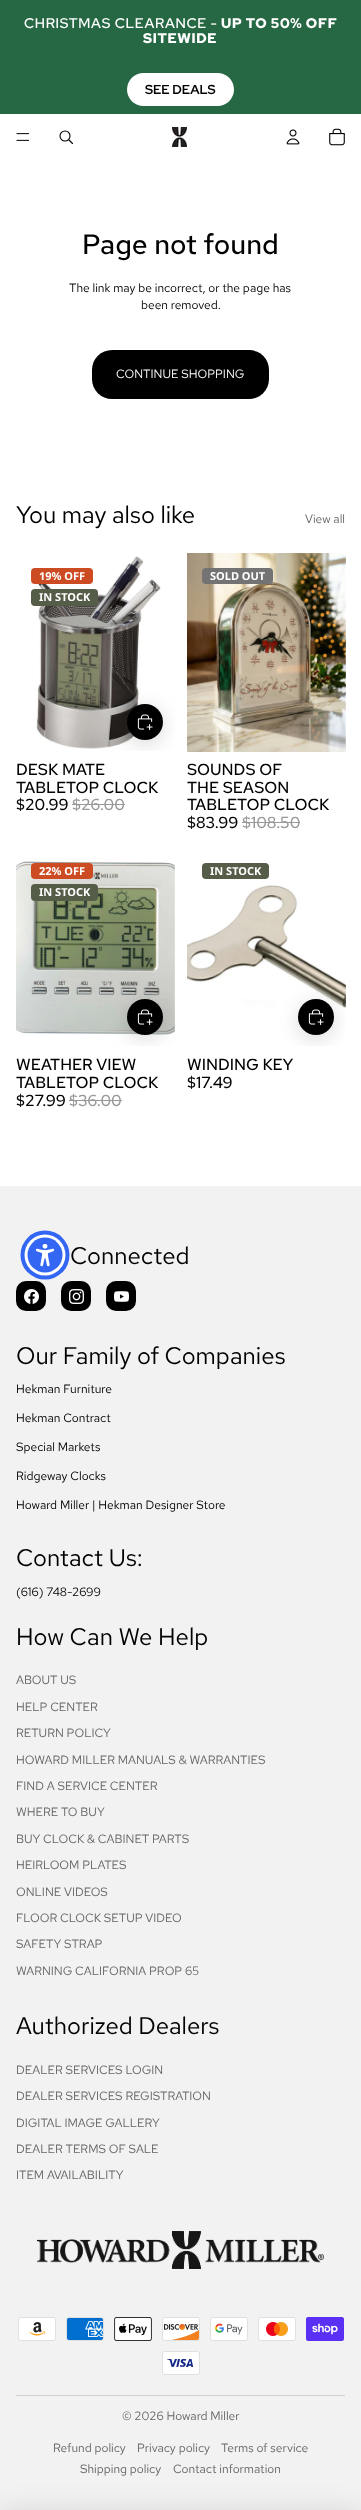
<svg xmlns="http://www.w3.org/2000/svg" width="361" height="2510">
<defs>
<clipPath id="clip1"><rect x="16" y="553" width="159" height="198"/></clipPath>
<clipPath id="clip2"><rect x="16" y="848" width="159" height="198"/></clipPath>
<clipPath id="clip3"><rect x="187" y="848" width="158" height="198"/></clipPath>
</defs>
<rect width="100%" height="100%" fill="#fff"/>
<rect width="361" height="114" fill="#266844"/>
<text x="24" y="28" style="font-family:Red Hat Display;font-size:14px;font-weight:600;letter-spacing:0.7px;fill:#fff">CHRISTMAS CLEARANCE -</text>
<text x="221" y="28" style="font-family:Red Hat Display;font-size:14px;font-weight:900;letter-spacing:0.7px;fill:#fff">UP TO 50% OFF</text>
<text x="143" y="43" style="font-family:Red Hat Display;font-size:14px;font-weight:900;letter-spacing:0.7px;fill:#fff">SITEWIDE</text>
<rect x="127" y="73" width="107" height="33" rx="16.5" fill="#fff"/>
<text x="145" y="94" style="font-family:Red Hat Display;font-size:13px;font-weight:bold;fill:#000">SEE DEALS</text>
<image x="16" y="133" width="14" height="8" href="media/1.png"/>
<circle cx="65" cy="136" r="5" fill="none" stroke="#000" stroke-width="1.1"/>
<path d="M69 140l3.5 3.5" fill="none" stroke="#000" stroke-width="1.1" stroke-linecap="round" stroke-linejoin="round"/>
<image x="172" y="127" width="15" height="20" href="media/2.png"/>
<image x="286" y="129" width="14" height="16" href="media/3.png"/>
<image x="329" y="128" width="16" height="18" href="media/4.png"/>
<text x="82" y="254" style="font-family:Red Hat Text;font-size:28px;font-weight:500;fill:#000">Page not found</text>
<text x="69" y="292" style="font-family:Red Hat Text;font-size:12px;fill:#000">The link may be incorrect, or the page has</text>
<text x="141" y="309" style="font-family:Red Hat Text;font-size:12px;fill:#000">been removed.</text>
<rect x="92" y="350" width="177" height="49" rx="20" fill="#000"/>
<text x="116" y="378" style="font-family:Red Hat Text;font-size:12px;fill:#fff">CONTINUE SHOPPING</text>
<text x="16" y="523" style="font-family:Red Hat Text;font-size:24px;fill:#000">You may also like</text>
<text x="305" y="523" style="font-family:Red Hat Text;font-size:12px;fill:#666">View all</text>
<image x="35" y="556" width="126" height="193" href="media/5.png"/>
<rect x="31" y="568" width="62" height="16" rx="4" fill="#cd4b22"/>
<text x="39" y="580" style="font-family:Noto Sans;font-size:11px;font-weight:bold;fill:#fff">19% OFF</text>
<rect x="31" y="589" width="67" height="17" rx="4" fill="#555c47"/>
<text x="39" y="601" style="font-family:Noto Sans;font-size:11px;font-weight:bold;fill:#fff">IN STOCK</text>
<g clip-path="url(#clip1)">
<rect x="127" y="708" width="36" height="36" rx="18" fill="#00000026" filter="blur(10px)"/>
</g>
<circle cx="145" cy="722" r="18" fill="#000"/>
<image x="137" y="714" width="16" height="17" href="media/6.png"/>
<text x="16" y="775" style="font-family:Red Hat Text;font-size:16px;font-weight:500;fill:#000">DESK MATE</text>
<text x="16" y="793" style="font-family:Red Hat Text;font-size:16px;font-weight:500;fill:#000">TABLETOP CLOCK</text>
<text x="16" y="810" style="font-family:Red Hat Text;font-size:16px;font-weight:500;fill:#000">$20.99</text>
<text x="72" y="810" style="font-family:Red Hat Text;font-size:16px;font-weight:500;fill:#999">$26.00</text>
<rect x="72" y="804" width="53" height="1" fill="#999"/>
<image x="187" y="553" width="159" height="199" href="media/7.png"/>
<rect x="202" y="568" width="71" height="16" rx="4" fill="#737373"/>
<text x="210" y="580" style="font-family:Noto Sans;font-size:11px;font-weight:bold;fill:#fff">SOLD OUT</text>
<text x="187" y="775" style="font-family:Red Hat Text;font-size:16px;font-weight:500;fill:#000">SOUNDS OF</text>
<text x="187" y="793" style="font-family:Red Hat Text;font-size:16px;font-weight:500;fill:#000">THE SEASON</text>
<text x="187" y="810" style="font-family:Red Hat Text;font-size:16px;font-weight:500;fill:#000">TABLETOP CLOCK</text>
<text x="187" y="828" style="font-family:Red Hat Text;font-size:16px;font-weight:500;fill:#000">$83.99</text>
<text x="242" y="828" style="font-family:Red Hat Text;font-size:16px;font-weight:500;fill:#999">$108.50</text>
<rect x="242" y="822" width="58" height="1" fill="#999"/>
<image x="16" y="861" width="159" height="174" href="media/8.png"/>
<rect x="31" y="863" width="62" height="16" rx="4" fill="#cd4b22"/>
<text x="39" y="875" style="font-family:Noto Sans;font-size:11px;font-weight:bold;fill:#fff">22% OFF</text>
<rect x="31" y="884" width="67" height="17" rx="4" fill="#555c47"/>
<text x="39" y="896" style="font-family:Noto Sans;font-size:11px;font-weight:bold;fill:#fff">IN STOCK</text>
<g clip-path="url(#clip2)">
<rect x="127" y="1003" width="36" height="36" rx="18" fill="#00000026" filter="blur(10px)"/>
</g>
<circle cx="145" cy="1017" r="18" fill="#000"/>
<image x="137" y="1009" width="16" height="17" href="media/6.png"/>
<text x="16" y="1070" style="font-family:Red Hat Text;font-size:16px;font-weight:500;fill:#000">WEATHER VIEW</text>
<text x="16" y="1088" style="font-family:Red Hat Text;font-size:16px;font-weight:500;fill:#000">TABLETOP CLOCK</text>
<text x="16" y="1106" style="font-family:Red Hat Text;font-size:16px;font-weight:500;fill:#000">$27.99</text>
<text x="69" y="1106" style="font-family:Red Hat Text;font-size:16px;font-weight:500;fill:#999">$36.00</text>
<rect x="69" y="1100" width="53" height="1" fill="#999"/>
<rect x="202" y="863" width="67" height="16" rx="4" fill="#555c47"/>
<text x="210" y="875" style="font-family:Noto Sans;font-size:11px;font-weight:bold;fill:#fff">IN STOCK</text>
<image x="187" y="885" width="159" height="123" href="media/9.png"/>
<g clip-path="url(#clip3)">
<rect x="298" y="1003" width="36" height="36" rx="18" fill="#00000026" filter="blur(10px)"/>
</g>
<circle cx="316" cy="1017" r="18" fill="#000"/>
<image x="308" y="1009" width="16" height="17" href="media/6.png"/>
<text x="187" y="1070" style="font-family:Red Hat Text;font-size:16px;font-weight:500;fill:#000">WINDING KEY</text>
<text x="187" y="1088" style="font-family:Red Hat Text;font-size:16px;font-weight:500;fill:#000">$17.49</text>
<rect y="1186" width="361" height="1324" fill="#f2f2f2"/>
<circle cx="45" cy="1255" r="24.5" fill="#3366f3"/>
<circle cx="45" cy="1255" r="20.5" fill="#fff"/>
<circle cx="45" cy="1255" r="17.5" fill="#3366f3"/>
<image x="35" y="1244" width="20" height="23" href="media/10.png"/>
<text x="70" y="1264" style="font-family:Red Hat Text;font-size:24px;fill:#000">Connected</text>
<rect x="16" y="1281" width="30" height="30" rx="10" fill="#000"/>
<image x="24" y="1289" width="15" height="15" href="media/11.png"/>
<rect x="61" y="1281" width="30" height="30" rx="10" fill="#000"/>
<image x="69" y="1289" width="15" height="15" href="media/12.png"/>
<rect x="106" y="1281" width="30" height="30" rx="10" fill="#000"/>
<image x="114" y="1291" width="15" height="11" href="media/13.png"/>
<text x="16" y="1364" style="font-family:Red Hat Text;font-size:24px;fill:#000">Our Family of Companies</text>
<text x="16" y="1393" style="font-family:Red Hat Text;font-size:12px;fill:#000">Hekman Furniture</text>
<text x="16" y="1422" style="font-family:Red Hat Text;font-size:12px;fill:#000">Hekman Contract</text>
<text x="16" y="1451" style="font-family:Red Hat Text;font-size:12px;fill:#000">Special Markets</text>
<text x="16" y="1480" style="font-family:Red Hat Text;font-size:12px;fill:#000">Ridgeway Clocks</text>
<text x="16" y="1509" style="font-family:Red Hat Text;font-size:12px;fill:#000">Howard Miller | Hekman Designer Store</text>
<text x="16" y="1566" style="font-family:Red Hat Text;font-size:24px;fill:#000">Contact Us:</text>
<text x="16" y="1596" style="font-family:Red Hat Text;font-size:12px;fill:#000">(616) 748-2699</text>
<text x="16" y="1645" style="font-family:Red Hat Text;font-size:24px;fill:#000">How Can We Help</text>
<text x="16" y="1684" style="font-family:Red Hat Text;font-size:12px;fill:#666">ABOUT US</text>
<text x="16" y="1711" style="font-family:Red Hat Text;font-size:12px;fill:#666">HELP CENTER</text>
<text x="16" y="1737" style="font-family:Red Hat Text;font-size:12px;fill:#666">RETURN POLICY</text>
<text x="16" y="1764" style="font-family:Red Hat Text;font-size:12px;fill:#666">HOWARD MILLER MANUALS &amp; WARRANTIES</text>
<text x="16" y="1790" style="font-family:Red Hat Text;font-size:12px;fill:#666">FIND A SERVICE CENTER</text>
<text x="16" y="1816" style="font-family:Red Hat Text;font-size:12px;fill:#666">WHERE TO BUY</text>
<text x="16" y="1843" style="font-family:Red Hat Text;font-size:12px;fill:#666">BUY CLOCK &amp; CABINET PARTS</text>
<text x="16" y="1869" style="font-family:Red Hat Text;font-size:12px;fill:#666">HEIRLOOM PLATES</text>
<text x="16" y="1896" style="font-family:Red Hat Text;font-size:12px;fill:#666">ONLINE VIDEOS</text>
<text x="16" y="1922" style="font-family:Red Hat Text;font-size:12px;fill:#666">FLOOR CLOCK SETUP VIDEO</text>
<text x="16" y="1948" style="font-family:Red Hat Text;font-size:12px;fill:#666">SAFETY STRAP</text>
<text x="16" y="1975" style="font-family:Red Hat Text;font-size:12px;fill:#666">WARNING CALIFORNIA PROP 65</text>
<text x="16" y="2034" style="font-family:Red Hat Text;font-size:24px;fill:#000">Authorized Dealers</text>
<text x="16" y="2074" style="font-family:Red Hat Text;font-size:12px;fill:#666">DEALER SERVICES LOGIN</text>
<text x="16" y="2100" style="font-family:Red Hat Text;font-size:12px;fill:#666">DEALER SERVICES REGISTRATION</text>
<text x="16" y="2127" style="font-family:Red Hat Text;font-size:12px;fill:#666">DIGITAL IMAGE GALLERY</text>
<text x="16" y="2153" style="font-family:Red Hat Text;font-size:12px;fill:#666">DEALER TERMS OF SALE</text>
<text x="16" y="2179" style="font-family:Red Hat Text;font-size:12px;fill:#666">ITEM AVAILABILITY</text>
<image x="37" y="2231" width="287" height="38" href="media/14.png"/>
<image x="18" y="2317" width="38" height="24" href="media/15.png"/>
<image x="66" y="2317" width="38" height="24" href="media/16.png"/>
<image x="114" y="2317" width="38" height="24" href="media/17.png"/>
<image x="162" y="2317" width="38" height="24" href="media/18.png"/>
<image x="210" y="2317" width="38" height="24" href="media/19.png"/>
<image x="258" y="2317" width="38" height="24" href="media/20.png"/>
<image x="306" y="2317" width="38" height="24" href="media/21.png"/>
<image x="162" y="2351" width="38" height="24" href="media/22.png"/>
<rect x="16" y="2395" width="329" height="1" fill="#d0d0d0"/>
<text x="122" y="2420" style="font-family:Red Hat Text;font-size:12px;fill:#666">© 2026 Howard Miller</text>
<text x="53" y="2452" style="font-family:Red Hat Text;font-size:12px;fill:#666">Refund policy</text>
<text x="137" y="2452" style="font-family:Red Hat Text;font-size:12px;fill:#666">Privacy policy</text>
<text x="221" y="2452" style="font-family:Red Hat Text;font-size:12px;fill:#666">Terms of service</text>
<text x="80" y="2473" style="font-family:Red Hat Text;font-size:12px;fill:#666">Shipping policy</text>
<text x="173" y="2473" style="font-family:Red Hat Text;font-size:12px;fill:#666">Contact information</text>
<rect y="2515" width="361" height="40" fill="#00000026" filter="blur(15px)"/>
</svg>
